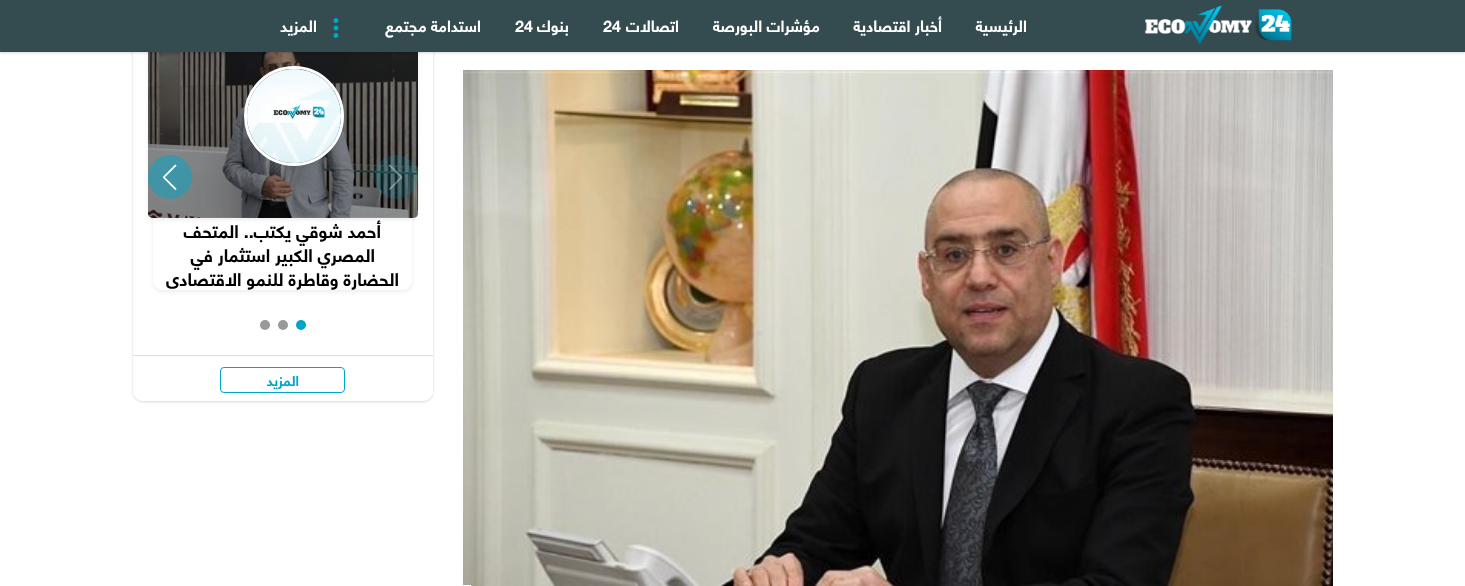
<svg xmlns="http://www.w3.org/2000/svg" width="1465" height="586">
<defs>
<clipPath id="clip1"><path d="M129 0h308v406h-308zm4-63h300v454c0 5.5-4.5 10-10 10h-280c-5.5 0-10-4.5-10-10z" clip-rule="evenodd"/></clipPath>
<clipPath id="clip2"><path d="M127 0h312v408h-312zm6-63h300v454c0 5.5-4.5 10-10 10h-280c-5.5 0-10-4.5-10-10z" clip-rule="evenodd"/></clipPath>
<clipPath id="clip3"><rect x="163" y="218" width="239" height="72"/></clipPath>
</defs>
<rect width="100%" height="100%" fill="#fff"/>
<g clip-path="url(#clip1)">
<rect x="133" y="-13" width="300" height="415" rx="10" fill="#0000000f" filter="blur(1px)"/>
</g>
<g clip-path="url(#clip2)">
<rect x="133" y="-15" width="300" height="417" rx="10" fill="#0000001a" filter="blur(1.5px)"/>
</g>
<rect x="153" y="210" width="259" height="82" rx="10" fill="#00000012" filter="blur(2px)"/>
<path d="M153 208h259v72c0 5.5-4.5 10-10 10h-239c-5.5 0-10-4.5-10-10z" fill="#fff"/>
<rect x="148" y="17" width="270" height="203" rx="5" fill="#00000012" filter="blur(2px)"/>
<rect x="148" y="15" width="270" height="203" rx="5" fill="#000"/>
<image x="148" y="52" width="270" height="166" href="media/6.png"/>
<rect y="1" width="1465" height="52" fill="#0000000f" filter="blur(1px)"/>
<rect y="1" width="1465" height="52" fill="#0000001a" filter="blur(1.5px)"/>
<rect width="1465" height="52" fill="#344b50"/>
<image x="1144" y="5" width="148" height="40" href="media/1.png"/>
<text x="1027" y="32" style="font-family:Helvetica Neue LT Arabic;font-size:16px;font-weight:bold;direction:rtl;fill:#fff">الرئيسية</text>
<text x="942" y="32" style="font-family:Helvetica Neue LT Arabic;font-size:16px;font-weight:bold;direction:rtl;fill:#fff">أخبار اقتصادية</text>
<text x="820" y="32" style="font-family:Helvetica Neue LT Arabic;font-size:16px;font-weight:bold;direction:rtl;fill:#fff">مؤشرات البورصة</text>
<text x="679" y="32" style="font-family:Helvetica Neue LT Arabic;font-size:16px;font-weight:bold;direction:rtl;fill:#fff">اتصالات</text>
<text x="603" y="32" style="font-family:Helvetica Neue LT Arabic;font-size:16px;font-weight:bold;fill:#fff">24</text>
<text x="569" y="32" style="font-family:Helvetica Neue LT Arabic;font-size:16px;font-weight:bold;direction:rtl;fill:#fff">بنوك</text>
<text x="515" y="32" style="font-family:Helvetica Neue LT Arabic;font-size:16px;font-weight:bold;fill:#fff">24</text>
<text x="481" y="32" style="font-family:Helvetica Neue LT Arabic;font-size:16px;font-weight:bold;direction:rtl;fill:#fff">استدامة مجتمع</text>
<image x="333" y="18" width="6" height="20" href="media/2.png"/>
<text x="317" y="32" style="font-family:Helvetica Neue LT Arabic;font-size:16px;font-weight:bold;direction:rtl;fill:#fff">المزيد</text>
<image x="463" y="70" width="870" height="516" href="media/3.png"/>
<rect x="463" y="585" width="8" height="1" fill="#f5fbff"/>
<circle cx="396" cy="177" r="22" fill="#00a5c92b"/>
<image x="389" y="164" width="14" height="26" href="media/4.png"/>
<circle cx="170" cy="177" r="22" fill="#00a5c980"/>
<image x="163" y="164" width="14" height="26" href="media/5.png"/>
<rect x="244" y="68" width="100" height="100" rx="50" fill="#00000012" filter="blur(2px)"/>
<circle cx="294" cy="116" r="48.5" fill="none" stroke="#fff" stroke-width="3"/>
<image x="247" y="69" width="94" height="94" href="media/7.png"/>
<text x="381" y="238" style="font-family:Helvetica Neue LT Arabic;font-size:18px;font-weight:bold;direction:rtl;fill:#000">أحمد شوقي يكتب.. المتحف</text>
<text x="375" y="262" style="font-family:Helvetica Neue LT Arabic;font-size:18px;font-weight:bold;direction:rtl;fill:#000">المصري الكبير استثمار في</text>
<g clip-path="url(#clip3)">
<text x="399" y="286" style="font-family:Helvetica Neue LT Arabic;font-size:18px;font-weight:bold;direction:rtl;fill:#000">الحضارة وقاطرة للنمو الاقتصادي</text>
</g>
<circle cx="301" cy="325" r="5" fill="#00a5c9"/>
<circle cx="283" cy="325" r="5" fill="#999"/>
<circle cx="265" cy="325" r="5" fill="#999"/>
<rect x="133" y="355" width="300" height="1" fill="#dcdcdc"/>
<rect x="220.5" y="367.5" width="124" height="25" rx="3.5" fill="none" stroke="#00a5c9"/>
<text x="299" y="386" style="font-family:Helvetica Neue LT Arabic;font-size:14px;font-weight:bold;direction:rtl;fill:#00a5c9">المزيد</text>
</svg>
